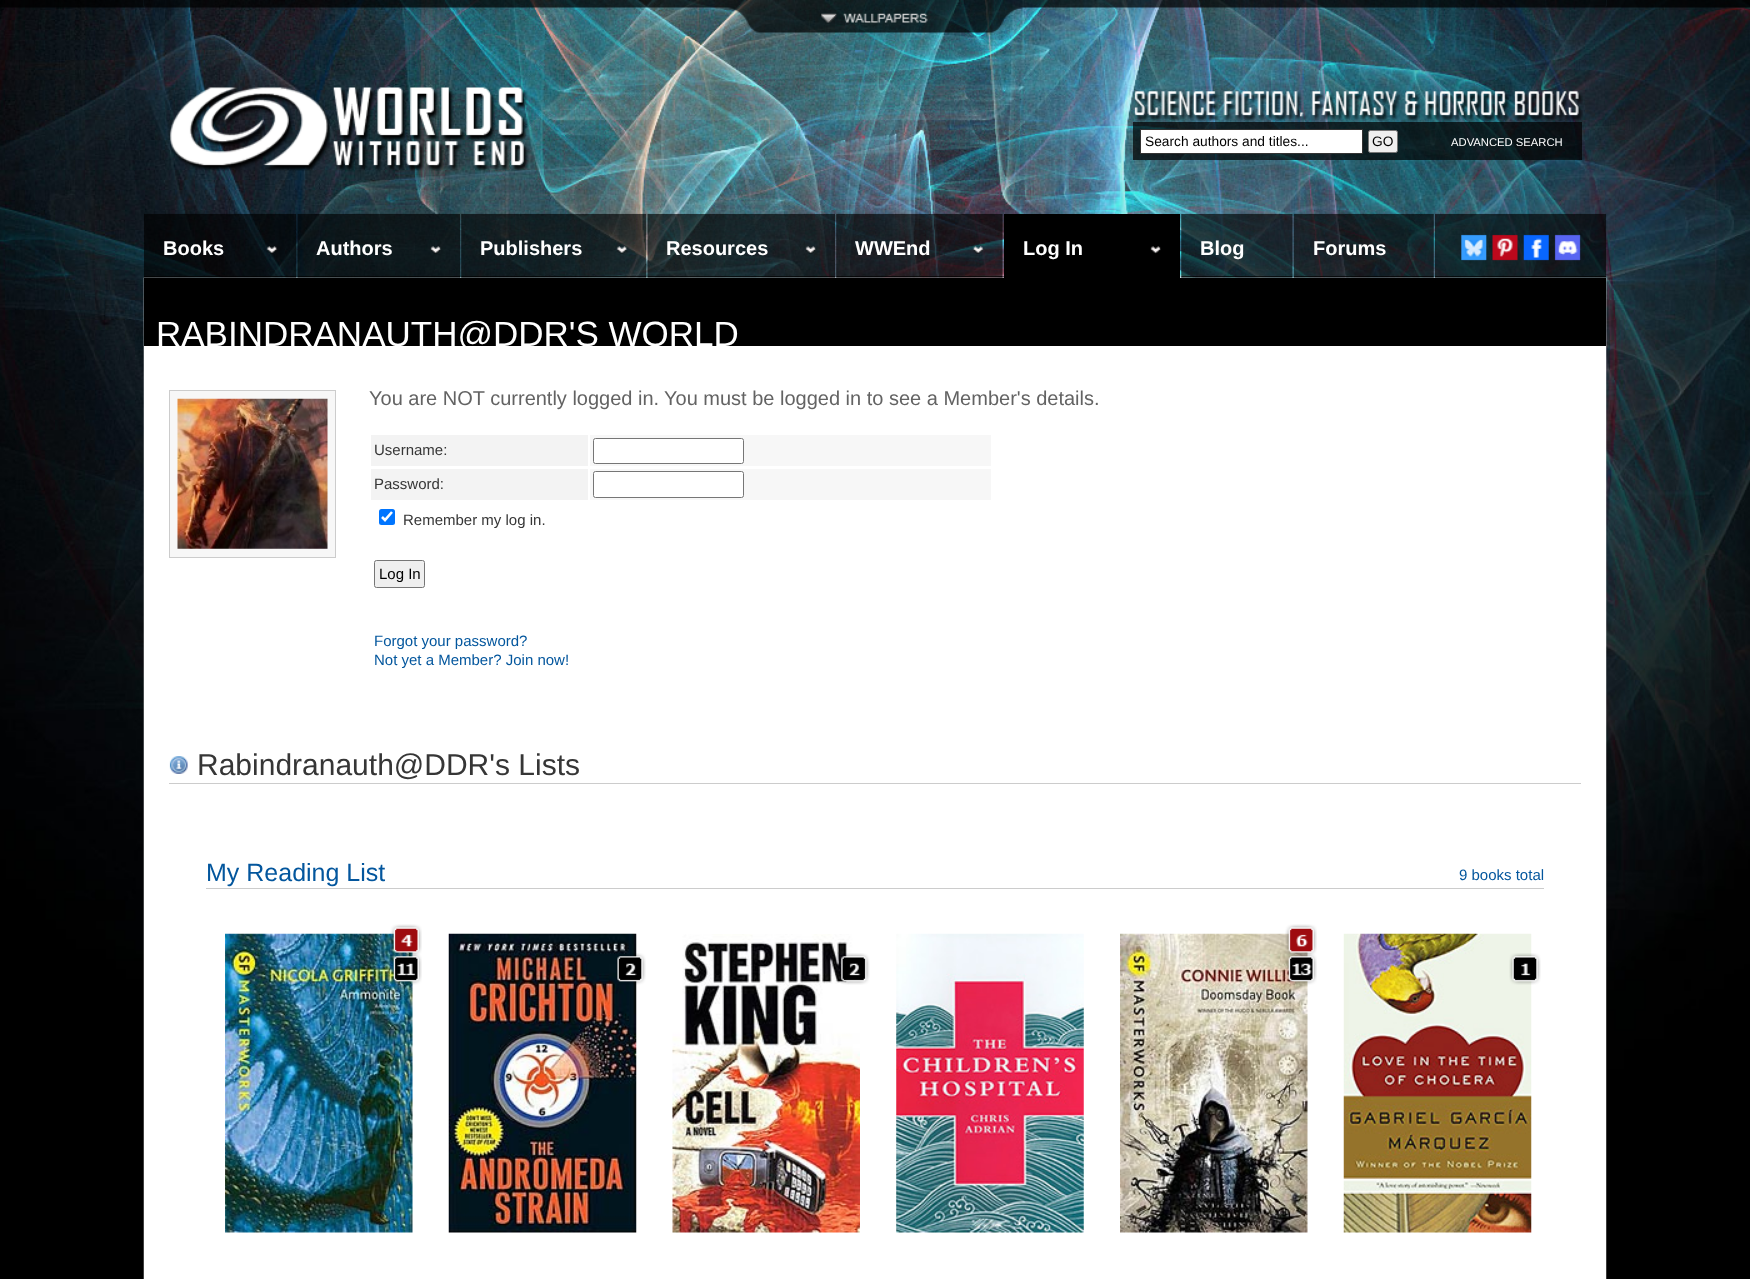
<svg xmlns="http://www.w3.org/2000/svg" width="1750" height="1279">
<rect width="100%" height="100%" fill="#000"/>
<image x="0" y="0" width="1750" height="1212" href="media/1.png"/>
<image x="0" y="0" width="1750" height="8" href="media/2.png"/>
<image x="144" y="0" width="1462" height="33" href="media/3.png"/>
<image x="821" y="13" width="107" height="10" href="media/4.png"/>
<image x="169" y="87" width="1414" height="84" href="media/5.png"/>
<rect x="1133" y="122" width="449" height="38" fill="#000000b3"/>
<rect x="1140.5" y="129.5" width="222" height="24" fill="#fff" stroke="#333"/>
<text x="1145" y="146" style="font-family:Liberation Sans;font-size:13.75px;fill:#000">Search authors and titles...</text>
<rect x="1368.5" y="130.5" width="29" height="22" rx="2" fill="#efefef" stroke="#767676"/>
<text x="1372" y="146" style="font-family:Liberation Sans;font-size:13.75px;fill:#000">GO</text>
<text x="1451" y="146" style="font-family:Liberation Sans;font-size:11.25px;fill:#fff">ADVANCED SEARCH</text>
<image x="143" y="277" width="1464" height="1002" href="media/21.png"/>
<image x="144" y="213" width="153" height="65" href="media/6.png"/>
<image x="266" y="246" width="12" height="8" href="media/7.png"/>
<text x="163" y="255" style="font-family:Liberation Sans;font-size:20px;font-weight:bold;fill:#fff">Books</text>
<image x="297" y="213" width="163" height="65" href="media/8.png"/>
<image x="430" y="246" width="11" height="8" href="media/9.png"/>
<text x="316" y="255" style="font-family:Liberation Sans;font-size:20px;font-weight:bold;fill:#fff">Authors</text>
<image x="461" y="213" width="186" height="65" href="media/10.png"/>
<image x="616" y="246" width="12" height="8" href="media/11.png"/>
<text x="480" y="255" style="font-family:Liberation Sans;font-size:20px;font-weight:bold;fill:#fff">Publishers</text>
<image x="647" y="213" width="188" height="65" href="media/12.png"/>
<image x="805" y="246" width="11" height="8" href="media/13.png"/>
<text x="666" y="255" style="font-family:Liberation Sans;font-size:20px;font-weight:bold;fill:#fff">Resources</text>
<image x="836" y="213" width="167" height="65" href="media/14.png"/>
<image x="972" y="246" width="12" height="8" href="media/15.png"/>
<text x="855" y="255" style="font-family:Liberation Sans;font-size:20px;font-weight:bold;fill:#fff">WWEnd</text>
<rect x="1004" y="214" width="176" height="64" fill="#000"/>
<image x="1150" y="246" width="11" height="8" href="media/16.png"/>
<text x="1023" y="255" style="font-family:Liberation Sans;font-size:20px;font-weight:bold;fill:#fff">Log In</text>
<image x="1181" y="213" width="112" height="65" href="media/17.png"/>
<text x="1200" y="255" style="font-family:Liberation Sans;font-size:20px;font-weight:bold;fill:#fff">Blog</text>
<image x="1293" y="213" width="141" height="65" href="media/18.png"/>
<text x="1313" y="255" style="font-family:Liberation Sans;font-size:20px;font-weight:bold;fill:#fff">Forums</text>
<image x="1435" y="213" width="172" height="65" href="media/19.png"/>
<image x="1461" y="234" width="120" height="27" href="media/20.png"/>
<rect x="144" y="278" width="1462" height="68" fill="#000"/>
<text x="156" y="346" style="font-family:Liberation Sans;font-size:35px;fill:#fff">RABINDRANAUTH@DDR'S WORLD</text>
<rect x="1181" y="346" width="425" height="933" fill="#fff"/>
<rect x="169.5" y="390.5" width="166" height="167" fill="#f7f7f7" stroke="#ccc"/>
<image x="177" y="398" width="151" height="151" href="media/22.png"/>
<text x="369" y="405" style="font-family:Liberation Sans;font-size:20px;fill:#636363">You are NOT currently logged in.</text>
<text x="664" y="405" style="font-family:Liberation Sans;font-size:20px;fill:#636363">You must be logged in to see a Member's details.</text>
<rect x="371" y="435" width="217" height="31" fill="#f3f3f3"/>
<text x="374" y="455" style="font-family:Liberation Sans;font-size:15px;fill:#363636">Username:</text>
<rect x="590" y="435" width="401" height="31" fill="#f7f7f7"/>
<rect x="593.5" y="438.5" width="150" height="25" rx="2" fill="#fff" stroke="#767676"/>
<rect x="371" y="469" width="217" height="31" fill="#f3f3f3"/>
<text x="374" y="489" style="font-family:Liberation Sans;font-size:15px;fill:#363636">Password:</text>
<rect x="590" y="469" width="401" height="31" fill="#f7f7f7"/>
<rect x="593.5" y="471.5" width="150" height="26" rx="2" fill="#fff" stroke="#767676"/>
<rect x="379" y="509" width="16" height="16" rx="2.5" fill="#0075ff"/>
<path d="M382 517l3 3l7-8" fill="none" stroke="#fff" stroke-width="2.6"/>
<text x="403" y="525" style="font-family:Liberation Sans;font-size:15px;fill:#363636">Remember my log in.</text>
<rect x="374.5" y="560.5" width="50" height="27" rx="2" fill="#efefef" stroke="#767676"/>
<text x="379" y="579" style="font-family:Liberation Sans;font-size:15px;fill:#000">Log In</text>
<text x="374" y="646" style="font-family:Liberation Sans;font-size:15px;fill:#03569d">Forgot your password?</text>
<text x="374" y="665" style="font-family:Liberation Sans;font-size:15px;fill:#03569d">Not yet a Member? Join now!</text>
<rect x="169" y="783" width="1412" height="1" fill="#ccc"/>
<image x="169" y="756" width="19" height="18" href="media/23.png"/>
<text x="197" y="775" style="font-family:Liberation Sans;font-size:30px;fill:#363636">Rabindranauth@DDR's Lists</text>
<rect x="206" y="888" width="1338" height="1" fill="#ccc"/>
<text x="206" y="881" style="font-family:Liberation Sans;font-size:25px;fill:#03569d">My Reading List</text>
<text x="1459" y="880" style="font-family:Liberation Sans;font-size:15px;fill:#03569d">9 books total</text>
<image x="225" y="933" width="188" height="300" href="media/25.png"/>
<image x="390" y="924" width="32" height="32" href="media/24.png"/>
<image x="390" y="953" width="32" height="32" href="media/26.png"/>
<image x="448" y="933" width="189" height="300" href="media/27.png"/>
<image x="616" y="953" width="30" height="32" href="media/28.png"/>
<image x="672" y="934" width="188" height="299" href="media/29.png"/>
<image x="838" y="953" width="32" height="32" href="media/30.png"/>
<image x="896" y="933" width="188" height="300" href="media/31.png"/>
<image x="1120" y="933" width="188" height="300" href="media/33.png"/>
<image x="1285" y="924" width="32" height="32" href="media/32.png"/>
<image x="1285" y="953" width="32" height="32" href="media/34.png"/>
<image x="1343" y="933" width="189" height="300" href="media/35.png"/>
<image x="1509" y="953" width="32" height="32" href="media/36.png"/>
</svg>
